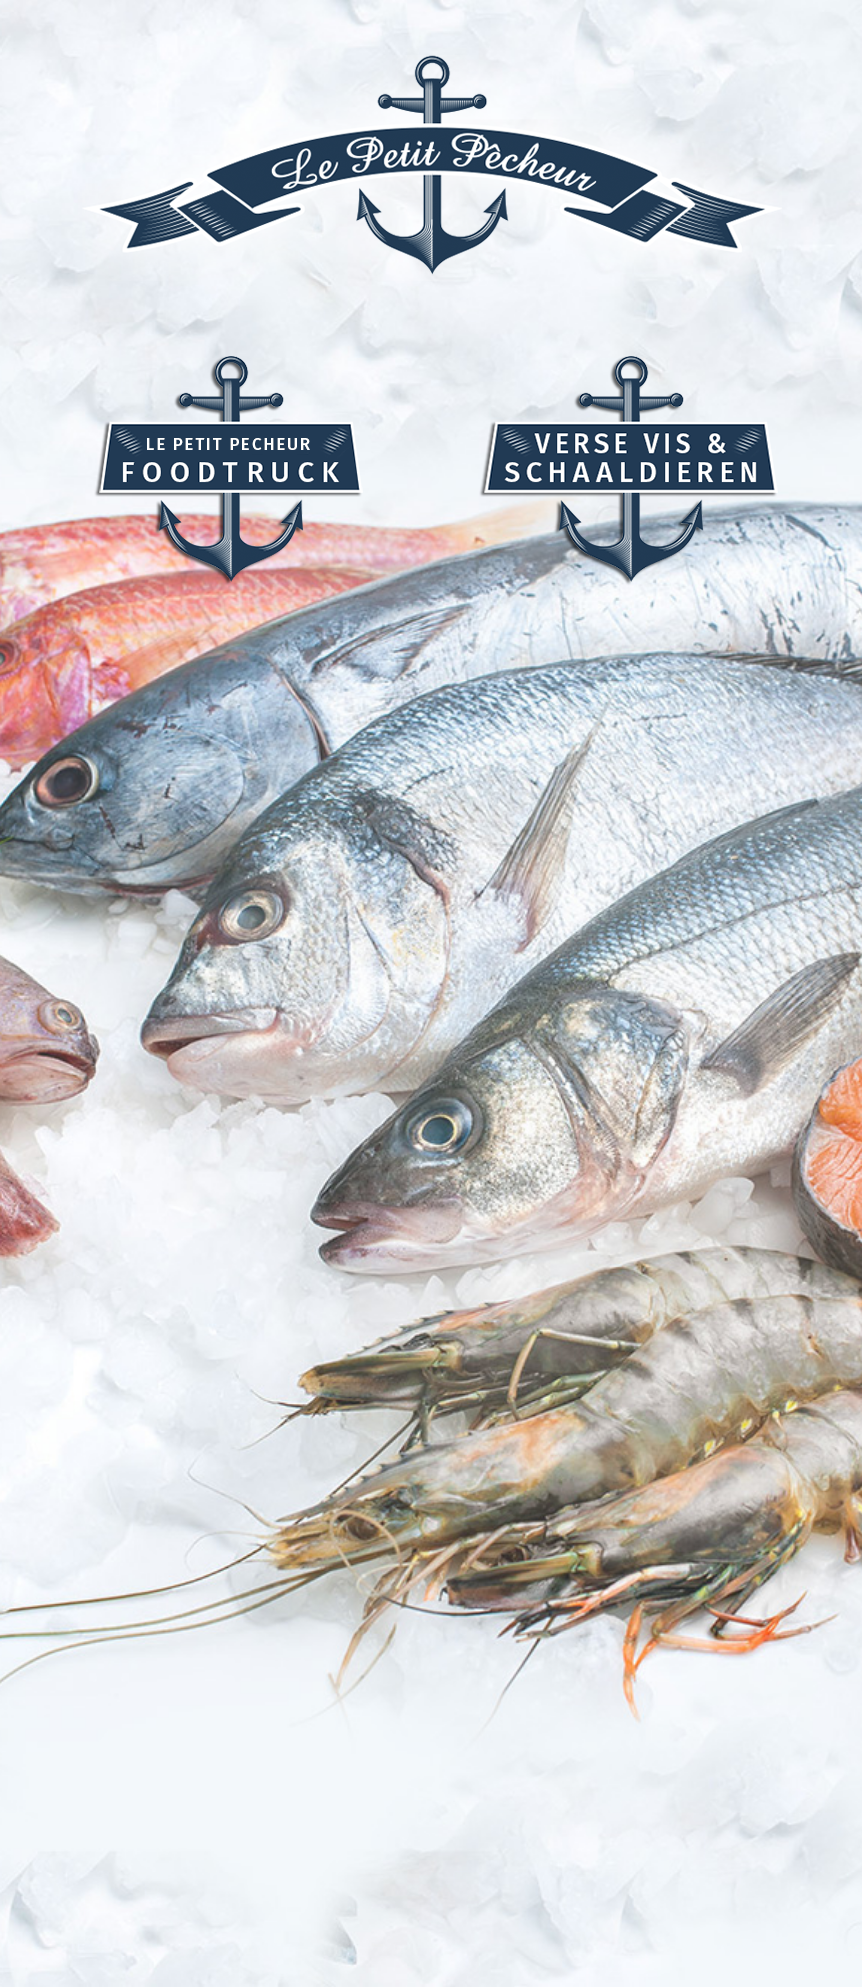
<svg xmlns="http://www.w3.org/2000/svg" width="862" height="1987">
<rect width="100%" height="100%" fill="#fff"/>
<image x="0" y="0" width="862" height="1987" href="media/1.png"/>
<image x="82" y="55" width="700" height="226" href="media/2.png"/>
<image x="94" y="356" width="269" height="229" href="media/3.png"/>
<image x="479" y="356" width="299" height="229" href="media/4.png"/>
</svg>
